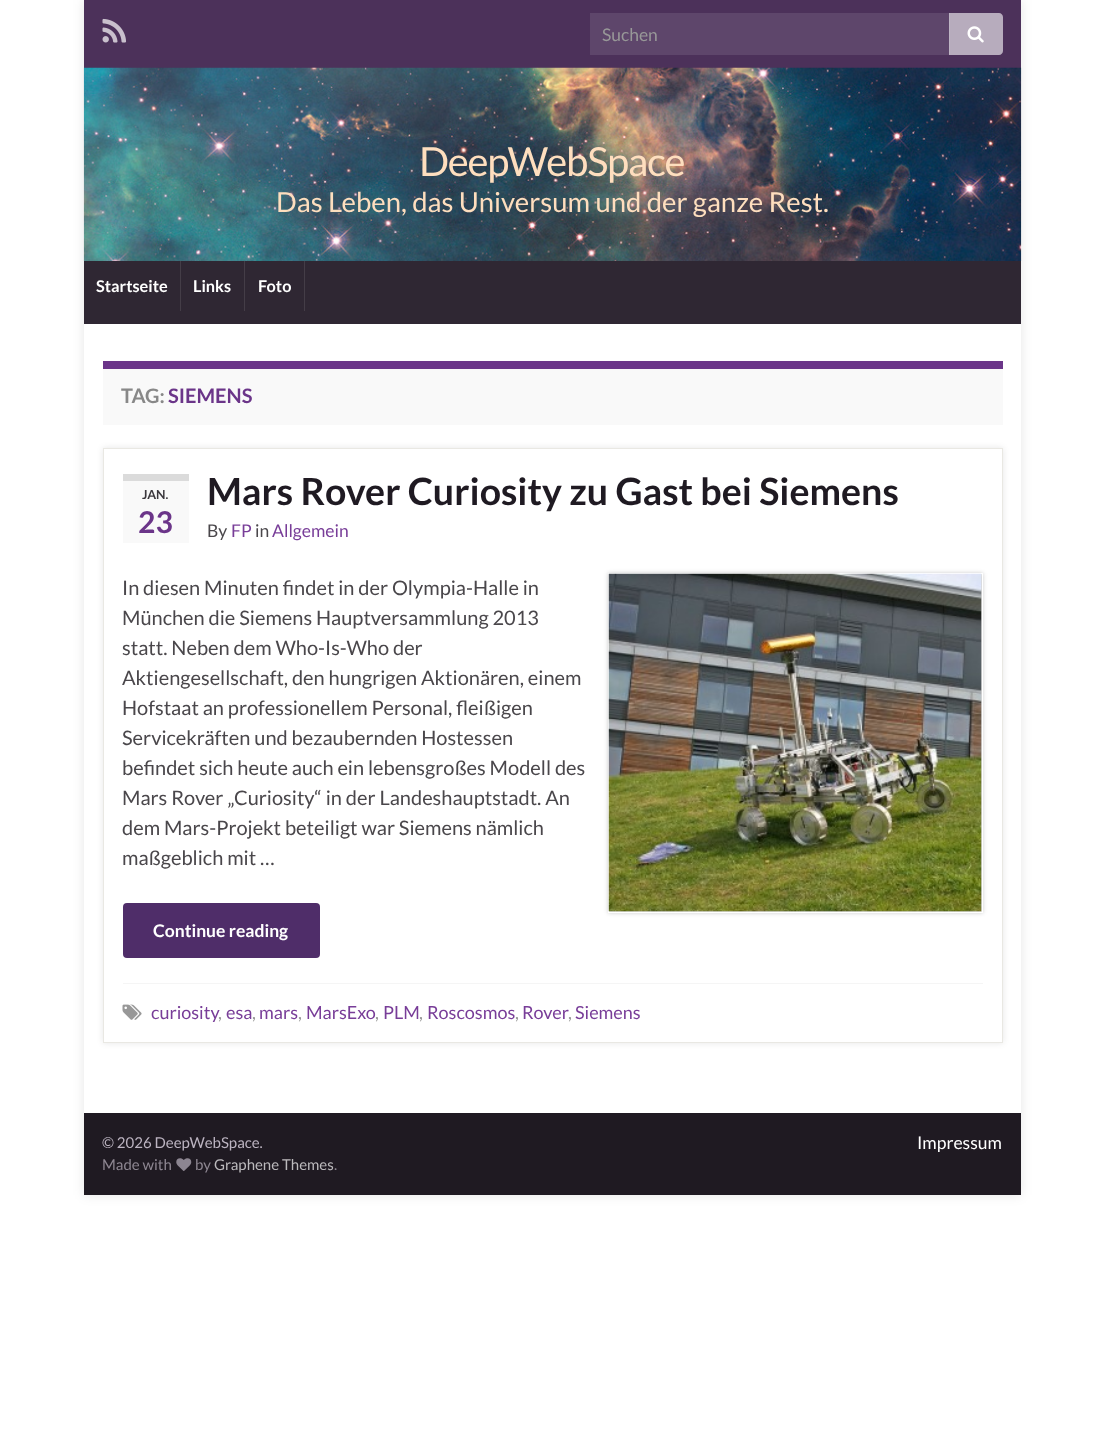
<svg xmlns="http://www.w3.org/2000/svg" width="1103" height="1431">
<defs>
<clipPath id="clip1"><path d="M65 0h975v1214h-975zm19 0h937v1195h-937z" clip-rule="evenodd"/></clipPath>
</defs>
<rect width="100%" height="100%" fill="#fff"/>
<g clip-path="url(#clip1)">
<rect x="84" width="937" height="1195" fill="#0000001a" filter="blur(6px)"/>
</g>
<rect x="84" width="937" height="68" fill="#4c315a"/>
<image x="102" y="18" width="25" height="25" href="media/1.png"/>
<rect x="590" y="13" width="360" height="42" fill="#5e466b"/>
<text x="602" y="41" style="font-family:Lato;font-size:17.5px;fill:#989898">Suchen</text>
<path d="M949 13h50c2 0 4 2 4 4v34c0 2-2 4-4 4h-50z" fill="#ffffff99"/>
<image x="967" y="26" width="17" height="17" href="media/2.png"/>
<image x="83" y="67" width="939" height="194" href="media/3.png"/>
<rect x="84" y="261" width="937" height="63" fill="#2f2733"/>
<text x="419" y="176" style="font-family:Lato;font-size:40px;letter-spacing:-1.25px;fill:#fedebe">DeepWebSpace</text>
<text x="276" y="212" style="font-family:Lato;font-size:27.5px;fill:#fedebe">Das Leben, das Universum und der ganze Rest.</text>
<rect x="180" y="261" width="1" height="50" fill="#443d47"/>
<text x="96" y="292" style="font-family:Lato;font-size:16.25px;font-weight:bold;fill:#fff">Startseite</text>
<rect x="244" y="261" width="1" height="50" fill="#443d47"/>
<text x="193" y="292" style="font-family:Lato;font-size:16.25px;font-weight:bold;fill:#fff">Links</text>
<rect x="304" y="261" width="1" height="50" fill="#443d47"/>
<text x="258" y="292" style="font-family:Lato;font-size:16.25px;font-weight:bold;fill:#fff">Foto</text>
<rect x="103" y="369" width="900" height="56" fill="#f9f9f9"/>
<rect x="103" y="361" width="900" height="8" fill="#6b3589"/>
<text x="121" y="403" style="font-family:Lato;font-size:20px;font-weight:bold;fill:#888">TAG:</text>
<text x="168" y="403" style="font-family:Lato;font-size:20px;font-weight:bold;fill:#6b3589">SIEMENS</text>
<rect x="103" y="448" width="900" height="595" fill="#0000001a" filter="blur(3px)"/>
<rect x="103.5" y="448.5" width="899" height="594" fill="#fff" stroke="#e9e8e3"/>
<rect x="123" y="481" width="66" height="62" fill="#f9f9f9"/>
<rect x="123" y="474" width="66" height="7" fill="#dbdbdb"/>
<text x="142" y="499" style="font-family:Lato;font-size:12.5px;font-weight:bold;fill:#3b383d">JAN.</text>
<text x="138" y="533" style="font-family:Lato;font-size:30px;font-weight:bold;fill:#6b3589">23</text>
<text x="207" y="505" style="font-family:Lato;font-size:37.5px;font-weight:bold;fill:#1f1a22">Mars Rover Curiosity zu Gast bei Siemens</text>
<text x="207" y="537" style="font-family:Lato;font-size:17.5px;fill:#4a474b">By</text>
<text x="231" y="537" style="font-family:Lato;font-size:17.5px;fill:#783d98">FP</text>
<text x="255" y="537" style="font-family:Lato;font-size:17.5px;fill:#4a474b">in</text>
<text x="272" y="537" style="font-family:Lato;font-size:17.5px;fill:#783d98">Allgemein</text>
<text x="122" y="595" style="font-family:Lato;font-size:20px;fill:#4a474b">In diesen Minuten findet in der Olympia-Halle in</text>
<text x="122" y="625" style="font-family:Lato;font-size:20px;fill:#4a474b">München die Siemens Hauptversammlung 2013</text>
<text x="122" y="655" style="font-family:Lato;font-size:20px;fill:#4a474b">statt. Neben dem Who-Is-Who der</text>
<text x="122" y="685" style="font-family:Lato;font-size:20px;fill:#4a474b">Aktiengesellschaft, den hungrigen Aktionären, einem</text>
<text x="122" y="715" style="font-family:Lato;font-size:20px;fill:#4a474b">Hofstaat an professionellem Personal, fleißigen</text>
<text x="122" y="745" style="font-family:Lato;font-size:20px;fill:#4a474b">Servicekräften und bezaubernden Hostessen</text>
<text x="122" y="775" style="font-family:Lato;font-size:20px;fill:#4a474b">befindet sich heute auch ein lebensgroßes Modell des</text>
<text x="122" y="805" style="font-family:Lato;font-size:20px;fill:#4a474b">Mars Rover „Curiosity“ in der Landeshauptstadt. An</text>
<text x="122" y="835" style="font-family:Lato;font-size:20px;fill:#4a474b">dem Mars-Projekt beteiligt war Siemens nämlich</text>
<text x="122" y="865" style="font-family:Lato;font-size:20px;fill:#4a474b">maßgeblich mit …</text>
<rect x="608" y="573" width="375" height="340" fill="#00000033" filter="blur(2px)"/>
<rect x="608.5" y="573.5" width="374" height="339" fill="none" stroke="#fff"/>
<image x="608" y="573" width="374" height="339" href="media/4.png"/>
<rect x="123" y="903" width="197" height="55" rx="4" fill="#4f2d69"/>
<text x="153" y="937" style="font-family:Lato;font-size:17.5px;font-weight:bold;fill:#fff">Continue reading</text>
<rect x="123" y="983" width="860" height="1" fill="#f5f5f5"/>
<image x="122" y="1004" width="20" height="16" href="media/5.png"/>
<text x="151" y="1019" style="font-family:Lato;font-size:18px;fill:#783d98">curiosity</text>
<text x="218" y="1019" style="font-family:Lato;font-size:18px;fill:#989898">,</text>
<text x="226" y="1019" style="font-family:Lato;font-size:18px;fill:#783d98">esa</text>
<text x="252" y="1019" style="font-family:Lato;font-size:18px;fill:#989898">,</text>
<text x="259" y="1019" style="font-family:Lato;font-size:18px;fill:#783d98">mars</text>
<text x="298" y="1019" style="font-family:Lato;font-size:18px;fill:#989898">,</text>
<text x="306" y="1019" style="font-family:Lato;font-size:18px;fill:#783d98">MarsExo</text>
<text x="375" y="1019" style="font-family:Lato;font-size:18px;fill:#989898">,</text>
<text x="383" y="1019" style="font-family:Lato;font-size:18px;fill:#783d98">PLM</text>
<text x="419" y="1019" style="font-family:Lato;font-size:18px;fill:#989898">,</text>
<text x="427" y="1019" style="font-family:Lato;font-size:18px;fill:#783d98">Roscosmos</text>
<text x="515" y="1019" style="font-family:Lato;font-size:18px;fill:#989898">,</text>
<text x="522" y="1019" style="font-family:Lato;font-size:18px;fill:#783d98">Rover</text>
<text x="568" y="1019" style="font-family:Lato;font-size:18px;fill:#989898">,</text>
<text x="575" y="1019" style="font-family:Lato;font-size:18px;fill:#783d98">Siemens</text>
<rect x="84" y="1113" width="937" height="82" fill="#1f1a22"/>
<text x="102" y="1148" style="font-family:Lato;font-size:15px;fill:#bcb4c1">© 2026 DeepWebSpace.</text>
<text x="102" y="1170" style="font-family:Lato;font-size:15px;fill:#8d8691">Made with</text>
<image x="176" y="1158" width="16" height="13" href="media/6.png"/>
<text x="195" y="1170" style="font-family:Lato;font-size:15px;fill:#8d8691">by</text>
<text x="214" y="1170" style="font-family:Lato;font-size:15px;fill:#bcbabd">Graphene Themes</text>
<text x="334" y="1170" style="font-family:Lato;font-size:15px;fill:#8d8691">.</text>
<text x="917" y="1149" style="font-family:Lato;font-size:17.5px;fill:#fff">Impressum</text>
</svg>
